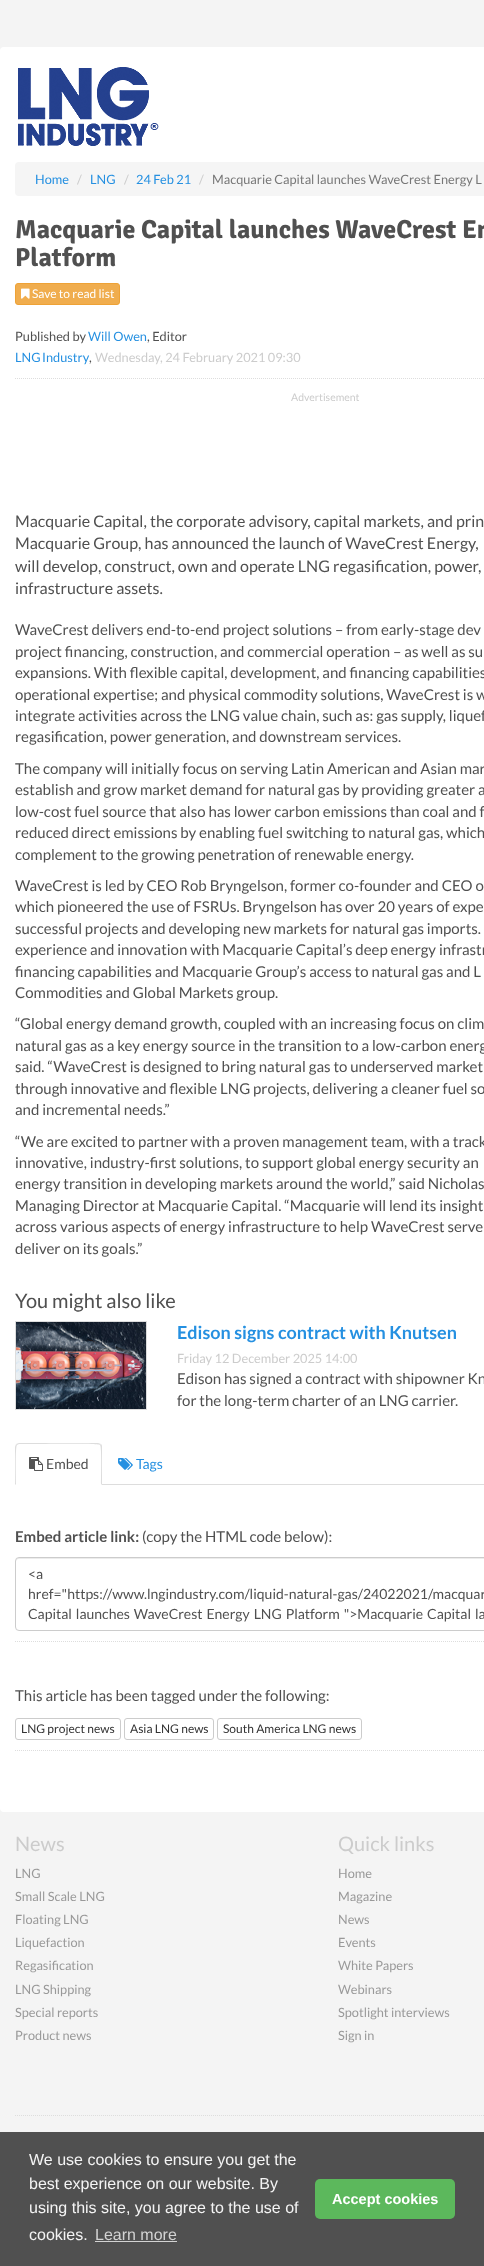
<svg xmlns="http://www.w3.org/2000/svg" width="484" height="2266">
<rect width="100%" height="100%" fill="#f4f4f4"/>
<rect y="47" width="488" height="39" rx="4" fill="#fff"/>
<rect y="83" width="484" height="133" fill="#fff"/>
<image x="18" y="67" width="141" height="79" href="media/1.png"/>
<rect x="15" y="162" width="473" height="34" rx="4" fill="#f5f5f5"/>
<text x="35" y="184" style="font-family:Lato;font-size:12.75px;fill:#2590e1">Home</text>
<text x="77" y="184" style="font-family:Lato;font-size:12.75px;fill:#ccc">/</text>
<text x="90" y="184" style="font-family:Lato;font-size:12.75px;fill:#2590e1">LNG</text>
<text x="124" y="184" style="font-family:Lato;font-size:12.75px;fill:#ccc">/</text>
<text x="136" y="184" style="font-family:Lato;font-size:12.75px;fill:#2590e1">24 Feb 21</text>
<text x="199" y="184" style="font-family:Lato;font-size:12.75px;fill:#ccc">/</text>
<text x="212" y="184" style="font-family:Lato;font-size:12.75px;fill:#777">Macquarie Capital launches WaveCrest Energy L</text>
<rect y="212" width="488" height="1600" rx="4" fill="#fff"/>
<text x="15" y="238" style="font-family:Signika;font-size:26px;font-weight:bold;fill:#505050">Macquarie Capital launches WaveCrest En</text>
<text x="15" y="266" style="font-family:Signika;font-size:26px;font-weight:bold;fill:#505050">Platform</text>
<rect x="15.5" y="283.5" width="104" height="21" rx="2.5" fill="#f0ad4e" stroke="#eea236"/>
<image x="21" y="288" width="9" height="11" href="media/2.png"/>
<text x="32" y="298" style="font-family:Lato;font-size:12px;fill:#fff">Save to read list</text>
<text x="15" y="341" style="font-family:Lato;font-size:12.75px;fill:#505050">Published by</text>
<text x="88" y="341" style="font-family:Lato;font-size:12.75px;fill:#2590e1">Will Owen</text>
<text x="147" y="341" style="font-family:Lato;font-size:12.75px;fill:#505050">, Editor</text>
<text x="15" y="362" word-spacing="-1" style="font-family:Lato;font-size:12.75px;fill:#2590e1">LNG Industry</text>
<text x="89" y="362" style="font-family:Lato;font-size:12.75px;fill:#505050">,</text>
<text x="95" y="362" style="font-family:Lato;font-size:12.75px;fill:#ccc">Wednesday, 24 February 2021 09:30</text>
<path d="M15 378.5h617" fill="none" stroke="#ddd" stroke-dasharray="1 1"/>
<text x="291" y="401" style="font-family:Lato;font-size:10.5px;fill:#ccc">Advertisement</text>
<text x="15" y="527" style="font-family:Lato;font-size:16px;fill:#505050">Macquarie Capital, the corporate advisory, capital markets, and prin</text>
<text x="15" y="549" style="font-family:Lato;font-size:16px;fill:#505050">Macquarie Group, has announced the launch of WaveCrest Energy,</text>
<text x="15" y="572" style="font-family:Lato;font-size:16px;fill:#505050">will develop, construct, own and operate LNG regasification, power,</text>
<text x="15" y="594" style="font-family:Lato;font-size:16px;fill:#505050">infrastructure assets.</text>
<text x="15" y="635" style="font-family:Lato;font-size:15px;fill:#505050">WaveCrest delivers end-to-end project solutions – from early-stage dev</text>
<text x="15" y="657" style="font-family:Lato;font-size:15px;fill:#505050">project financing, construction, and commercial operation – as well as su</text>
<text x="15" y="678" style="font-family:Lato;font-size:15px;fill:#505050">expansions. With flexible capital, development, and financing capabilities</text>
<text x="15" y="700" style="font-family:Lato;font-size:15px;fill:#505050">operational expertise; and physical commodity solutions, WaveCrest is w</text>
<text x="15" y="721" style="font-family:Lato;font-size:15px;fill:#505050">integrate activities across the LNG value chain, such as: gas supply, liquef</text>
<text x="15" y="742" style="font-family:Lato;font-size:15px;fill:#505050">regasification, power generation, and downstream services.</text>
<text x="15" y="774" style="font-family:Lato;font-size:15px;fill:#505050">The company will initially focus on serving Latin American and Asian mar</text>
<text x="15" y="795" style="font-family:Lato;font-size:15px;fill:#505050">establish and grow market demand for natural gas by providing greater a</text>
<text x="15" y="817" style="font-family:Lato;font-size:15px;fill:#505050">low-cost fuel source that also has lower carbon emissions than coal and f</text>
<text x="15" y="838" style="font-family:Lato;font-size:15px;fill:#505050">reduced direct emissions by enabling fuel switching to natural gas, which</text>
<text x="15" y="860" style="font-family:Lato;font-size:15px;fill:#505050">complement to the growing penetration of renewable energy.</text>
<text x="15" y="891" style="font-family:Lato;font-size:15px;fill:#505050">WaveCrest is led by CEO Rob Bryngelson, former co-founder and CEO o</text>
<text x="15" y="912" style="font-family:Lato;font-size:15px;fill:#505050">which pioneered the use of FSRUs. Bryngelson has over 20 years of expe</text>
<text x="15" y="934" style="font-family:Lato;font-size:15px;fill:#505050">successful projects and developing new markets for natural gas imports.</text>
<text x="15" y="955" style="font-family:Lato;font-size:15px;fill:#505050">experience and innovation with Macquarie Capital’s deep energy infrastr</text>
<text x="15" y="977" style="font-family:Lato;font-size:15px;fill:#505050">financing capabilities and Macquarie Group’s access to natural gas and L</text>
<text x="15" y="998" style="font-family:Lato;font-size:15px;fill:#505050">Commodities and Global Markets group.</text>
<text x="15" y="1029" style="font-family:Lato;font-size:15px;fill:#505050">“Global energy demand growth, coupled with an increasing focus on clim</text>
<text x="15" y="1051" style="font-family:Lato;font-size:15px;fill:#505050">natural gas as a key energy source in the transition to a low-carbon energ</text>
<text x="15" y="1072" style="font-family:Lato;font-size:15px;fill:#505050">said. “WaveCrest is designed to bring natural gas to underserved market</text>
<text x="15" y="1094" style="font-family:Lato;font-size:15px;fill:#505050">through innovative and flexible LNG projects, delivering a cleaner fuel so</text>
<text x="15" y="1115" style="font-family:Lato;font-size:15px;fill:#505050">and incremental needs.”</text>
<text x="15" y="1147" style="font-family:Lato;font-size:15px;fill:#505050">“We are excited to partner with a proven management team, with a track</text>
<text x="15" y="1168" style="font-family:Lato;font-size:15px;fill:#505050">innovative, industry-first solutions, to support global energy security an</text>
<text x="15" y="1189" style="font-family:Lato;font-size:15px;fill:#505050">energy transition in developing markets around the world,” said Nicholas</text>
<text x="15" y="1211" style="font-family:Lato;font-size:15px;fill:#505050">Managing Director at Macquarie Capital. “Macquarie will lend its insight</text>
<text x="15" y="1232" style="font-family:Lato;font-size:15px;fill:#505050">across various aspects of energy infrastructure to help WaveCrest serve</text>
<text x="15" y="1254" style="font-family:Lato;font-size:15px;fill:#505050">deliver on its goals.”</text>
<text x="15" y="1308" style="font-family:Lato;font-size:20px;fill:#505050">You might also like</text>
<rect x="15.5" y="1321.5" width="131" height="88" fill="none" stroke="#ddd"/>
<image x="16" y="1322" width="130" height="87" href="media/3.png"/>
<text x="177" y="1339" style="font-family:Lato;font-size:18px;font-weight:bold;fill:#2590e1">Edison signs contract with Knutsen</text>
<text x="177" y="1363" style="font-family:Lato;font-size:12.75px;fill:#ccc">Friday 12 December 2025 14:00</text>
<text x="177" y="1384" style="font-family:Lato;font-size:15px;fill:#505050">Edison has signed a contract with shipowner Kn</text>
<text x="177" y="1406" style="font-family:Lato;font-size:15px;fill:#505050">for the long-term charter of an LNG carrier.</text>
<rect x="102" y="1484" width="382" height="1" fill="#ddd"/>
<path d="M19 1443l-3 1l1 1l2-1h13c7 0 66-1 68 1l1-1l-3-1z" fill="#ddd"/>
<path d="M102 1485v-38c0-1 0-2-1-3l-1 1c2 2 1 34 1 39z" fill="#ddd"/>
<path d="M15 1485l1-1c0-5-1-37 1-39l-1-1l-1 3z" fill="#ddd"/>
<image x="29" y="1457" width="14" height="14" href="media/4.png"/>
<text x="46" y="1469" style="font-family:Lato;font-size:14px;fill:#505050">Embed</text>
<image x="118" y="1458" width="15" height="12" href="media/5.png"/>
<text x="136" y="1469" style="font-family:Lato;font-size:14px;fill:#2590e1">Tags</text>
<text x="15" y="1542" style="font-family:Lato;font-size:15px;font-weight:bold;fill:#505050">Embed article link:</text>
<text x="142" y="1542" style="font-family:Lato;font-size:15px;fill:#505050">(copy the HTML code below):</text>
<path d="M19 1559h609c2 0 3 1 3 3v-1c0-2-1-3-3-3h-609c-2 0-3 1-3 3v1c0-2 1-3 3-3z" fill="#ececec"/>
<rect x="15.5" y="1557.5" width="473" height="73" rx="3.5" fill="none" stroke="#ccc"/>
<text x="28" y="1579" style="font-family:Lato;font-size:14px;fill:#505050">&lt;a</text>
<text x="28" y="1599" style="font-family:Lato;font-size:14px;fill:#505050">href="https://www.lngindustry.com/liquid-natural-gas/24022021/macquar</text>
<text x="28" y="1619" word-spacing="1.25" style="font-family:Lato;font-size:14px;fill:#505050">Capital launches WaveCrest Energy LNG Platform "&gt;Macquarie Capital la</text>
<path d="M15 1641.5h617" fill="none" stroke="#ddd" stroke-dasharray="1 1"/>
<text x="15" y="1701" style="font-family:Lato;font-size:15px;fill:#505050">This article has been tagged under the following:</text>
<rect x="15.5" y="1718.5" width="105" height="21" rx="2.5" fill="none" stroke="#ccc"/>
<text x="21" y="1733" style="font-family:Lato;font-size:12px;fill:#333">LNG project news</text>
<rect x="124.5" y="1718.5" width="89" height="21" rx="2.5" fill="none" stroke="#ccc"/>
<text x="130" y="1733" style="font-family:Lato;font-size:12px;fill:#333">Asia LNG news</text>
<rect x="217.5" y="1718.5" width="144" height="21" rx="2.5" fill="none" stroke="#ccc"/>
<text x="223" y="1733" style="font-family:Lato;font-size:12px;fill:#333">South America LNG news</text>
<path d="M15 1750.5h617" fill="none" stroke="#ddd" stroke-dasharray="1 1"/>
<text x="15" y="1851" style="font-family:Lato;font-size:20px;fill:#ccc">News</text>
<text x="15" y="1878" style="font-family:Lato;font-size:12.75px;fill:#999">LNG</text>
<text x="15" y="1901" style="font-family:Lato;font-size:12.75px;fill:#999">Small Scale LNG</text>
<text x="15" y="1924" style="font-family:Lato;font-size:12.75px;fill:#999">Floating LNG</text>
<text x="15" y="1947" style="font-family:Lato;font-size:12.75px;fill:#999">Liquefaction</text>
<text x="15" y="1970" style="font-family:Lato;font-size:12.75px;fill:#999">Regasification</text>
<text x="15" y="1994" style="font-family:Lato;font-size:12.75px;fill:#999">LNG Shipping</text>
<text x="15" y="2017" style="font-family:Lato;font-size:12.75px;fill:#999">Special reports</text>
<text x="15" y="2040" style="font-family:Lato;font-size:12.75px;fill:#999">Product news</text>
<text x="338" y="1851" style="font-family:Lato;font-size:20px;fill:#ccc">Quick links</text>
<text x="338" y="1878" style="font-family:Lato;font-size:12.75px;fill:#999">Home</text>
<text x="338" y="1901" style="font-family:Lato;font-size:12.75px;fill:#999">Magazine</text>
<text x="338" y="1924" style="font-family:Lato;font-size:12.75px;fill:#999">News</text>
<text x="338" y="1947" style="font-family:Lato;font-size:12.75px;fill:#999">Events</text>
<text x="338" y="1970" style="font-family:Lato;font-size:12.75px;fill:#999">White Papers</text>
<text x="338" y="1994" style="font-family:Lato;font-size:12.75px;fill:#999">Webinars</text>
<text x="338" y="2017" style="font-family:Lato;font-size:12.75px;fill:#999">Spotlight interviews</text>
<text x="338" y="2040" style="font-family:Lato;font-size:12.75px;fill:#999">Sign in</text>
<path d="M15 2115.5h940" fill="none" stroke="#ddd" stroke-dasharray="1 1"/>
<rect y="2132" width="484" height="134" fill="#505050"/>
<text x="29" y="2165" style="font-family:Liberation Sans;font-size:16px;fill:#f4f4f4">We use cookies to ensure you get the</text>
<text x="29" y="2189" style="font-family:Liberation Sans;font-size:16px;fill:#f4f4f4">best experience on our website. By</text>
<text x="29" y="2213" style="font-family:Liberation Sans;font-size:16px;fill:#f4f4f4">using this site, you agree to the use of</text>
<text x="29" y="2240" style="font-family:Liberation Sans;font-size:16px;fill:#f4f4f4">cookies.</text>
<text x="95" y="2240" style="font-family:Liberation Sans;font-size:16px;fill:#d3d3d3">Learn more</text>
<rect x="95" y="2241" width="82" height="1" fill="#d3d3d3"/>
<rect x="315" y="2179" width="140" height="40" rx="5" fill="#5cb85c"/>
<text x="332" y="2204" style="font-family:Liberation Sans;font-size:14.5px;font-weight:bold;fill:#fff">Accept cookies</text>
</svg>
